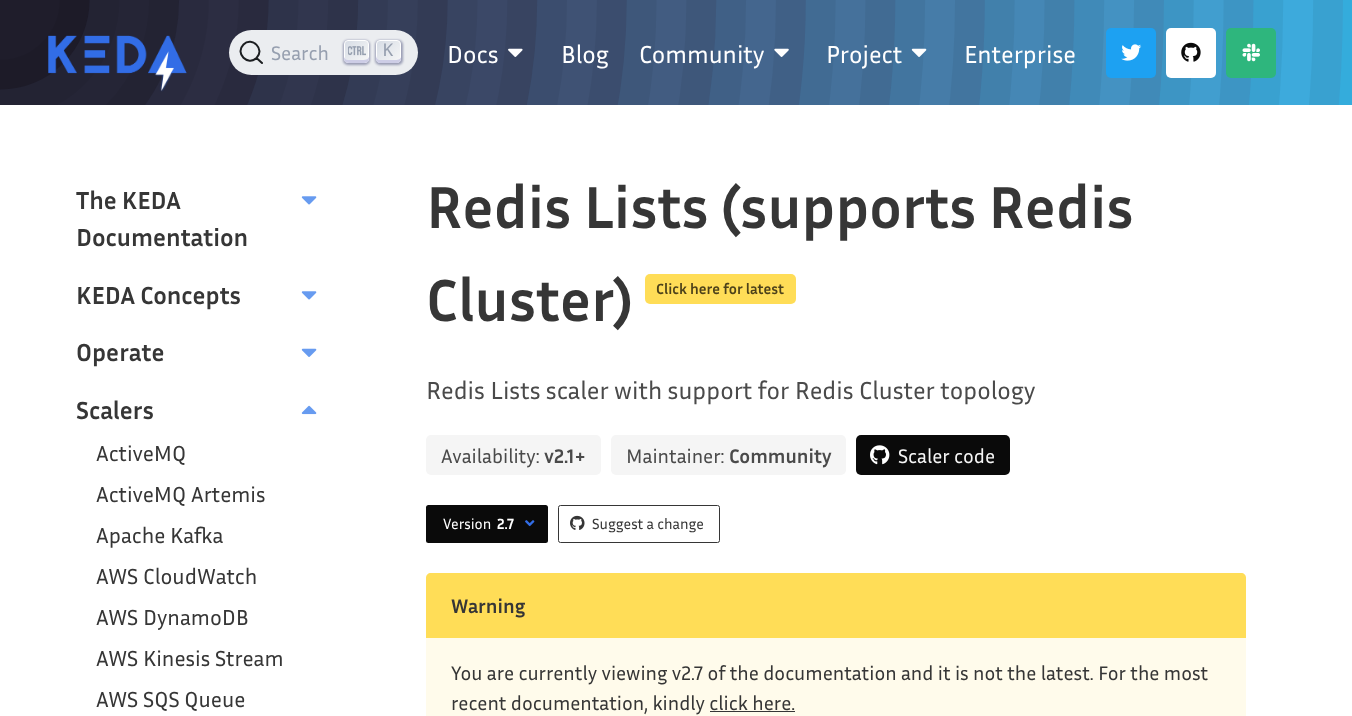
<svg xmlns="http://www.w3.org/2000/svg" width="1352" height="716">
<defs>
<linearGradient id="g1" gradientUnits="userSpaceOnUse" x1="344" y1="39" x2="368" y2="63"><stop offset="0" stop-color="#d5dbe4"/><stop offset="1" stop-color="#f8f8f8"/></linearGradient>
<linearGradient id="g2" gradientUnits="userSpaceOnUse" x1="377" y1="39" x2="401" y2="63"><stop offset="0" stop-color="#d5dbe4"/><stop offset="1" stop-color="#f8f8f8"/></linearGradient>
</defs>
<rect width="100%" height="100%" fill="#fff"/>
<image x="0" y="0" width="1352" height="105" href="media/1.png"/>
<image x="48" y="35" width="139" height="57" href="media/2.png"/>
<rect x="229" y="30" width="189" height="45" rx="22.5" fill="#ebedf0"/>
<path d="M256.5 58l5.5 5l-5.5-5c-8.5 8.5-22-4.5-13-13.5c8.5-8.5 22 5 13 13.5z" fill="none" stroke="#1c1e21" stroke-width="2" stroke-linecap="round" stroke-linejoin="round"/>
<text x="271" y="60" style="font-family:Inria Sans;font-size:20px;fill:#969faf">Search</text>
<rect x="343" y="40" width="27" height="25" rx="5" fill="#1e235a66" filter="blur(1px)"/>
<rect x="344.5" y="40.5" width="24" height="22" rx="3.5" fill="url(#g1)" stroke="#fff"/>
<path d="M369 56.5c-.5 2.5-2 3.5-7 3.5h-14c-2.5 0-3.5-1.5-4-3c0 5.5 1.5 6 7 6h11c6 0 7-.5 7-6.5z" fill="#cdcde6"/>
<image x="348" y="46" width="18" height="10" href="media/3.png"/>
<rect x="375" y="40" width="28" height="25" rx="5" fill="#1e235a66" filter="blur(1px)"/>
<rect x="376.5" y="40.5" width="24" height="22" rx="3.5" fill="url(#g2)" stroke="#fff"/>
<path d="M401 57c-.5 2-2 3-6 3h-15c-3 0-4-2.5-4-5.5v4.5c0 2 2 4 4 4h17c2 0 4-2 4-4z" fill="#cdcde6"/>
<text x="383" y="56" style="font-family:DejaVu Sans Mono;font-size:17px;fill:#969faf">K</text>
<text x="447" y="63" style="font-family:Inria Sans;font-size:25px;fill:#fff">Docs</text>
<image x="508" y="48" width="15" height="9" href="media/4.png"/>
<text x="561" y="63" style="font-family:Inria Sans;font-size:25px;fill:#fff">Blog</text>
<text x="639" y="63" style="font-family:Inria Sans;font-size:25px;fill:#fff">Community</text>
<image x="774" y="48" width="15" height="9" href="media/5.png"/>
<text x="826" y="63" style="font-family:Inria Sans;font-size:25px;fill:#fff">Project</text>
<image x="911" y="48" width="16" height="9" href="media/6.png"/>
<text x="964" y="63" style="font-family:Inria Sans;font-size:25px;fill:#fff">Enterprise</text>
<rect x="1106" y="28" width="50" height="50" rx="5" fill="#1da1f2"/>
<image x="1121" y="44" width="21" height="17" href="media/7.png"/>
<rect x="1166" y="28" width="50" height="50" rx="5" fill="#fff"/>
<image x="1181" y="42" width="20" height="20" href="media/8.png"/>
<rect x="1226" y="28" width="50" height="50" rx="5" fill="#2eb67d"/>
<image x="1242" y="43" width="18" height="19" href="media/9.png"/>
<text x="76" y="209" style="font-family:Inria Sans;font-size:25px;font-weight:bold;fill:#363636">The KEDA</text>
<text x="76" y="246" style="font-family:Inria Sans;font-size:25px;font-weight:bold;fill:#363636">Documentation</text>
<image x="301" y="196" width="16" height="9" href="media/10.png"/>
<text x="76" y="304" style="font-family:Inria Sans;font-size:25px;font-weight:bold;fill:#363636">KEDA Concepts</text>
<image x="301" y="291" width="16" height="9" href="media/10.png"/>
<text x="76" y="361" style="font-family:Inria Sans;font-size:25px;font-weight:bold;fill:#363636">Operate</text>
<image x="301" y="348" width="16" height="9" href="media/11.png"/>
<text x="76" y="419" style="font-family:Inria Sans;font-size:25px;font-weight:bold;fill:#363636">Scalers</text>
<image x="301" y="405" width="16" height="10" href="media/12.png"/>
<text x="96" y="461" style="font-family:Inria Sans;font-size:22px;fill:#363636">ActiveMQ</text>
<text x="96" y="502" style="font-family:Inria Sans;font-size:22px;fill:#363636">ActiveMQ Artemis</text>
<text x="96" y="543" style="font-family:Inria Sans;font-size:22px;fill:#363636">Apache Kafka</text>
<text x="96" y="584" style="font-family:Inria Sans;font-size:22px;fill:#363636">AWS CloudWatch</text>
<text x="96" y="625" style="font-family:Inria Sans;font-size:22px;fill:#363636">AWS DynamoDB</text>
<text x="96" y="666" style="font-family:Inria Sans;font-size:22px;fill:#363636">AWS Kinesis Stream</text>
<text x="96" y="707" style="font-family:Inria Sans;font-size:22px;fill:#363636">AWS SQS Queue</text>
<text x="426" y="228" style="font-family:Inria Sans;font-size:60px;font-weight:bold;fill:#363636">Redis Lists (supports Redis</text>
<text x="426" y="321" style="font-family:Inria Sans;font-size:60px;font-weight:bold;fill:#363636">Cluster)</text>
<rect x="645" y="274" width="151" height="30" rx="5" fill="#ffdd57"/>
<text x="656" y="294" style="font-family:Inria Sans;font-size:15px;font-weight:bold;fill:#4d421a">Click here for latest</text>
<text x="426" y="399" style="font-family:Inria Sans;font-size:25px;fill:#4a4a4a">Redis Lists scaler with support for Redis Cluster topology</text>
<rect x="426" y="435" width="175" height="40" rx="5" fill="#f5f5f5"/>
<text x="441" y="463" style="font-family:Inria Sans;font-size:20px;fill:#4a4a4a">Availability:</text>
<text x="544" y="463" style="font-family:Inria Sans;font-size:20px;font-weight:bold;fill:#4a4a4a">v2.1+</text>
<rect x="611" y="435" width="235" height="40" rx="5" fill="#f5f5f5"/>
<text x="626" y="463" style="font-family:Inria Sans;font-size:20px;fill:#4a4a4a">Maintainer:</text>
<text x="729" y="463" style="font-family:Inria Sans;font-size:20px;font-weight:bold;fill:#4a4a4a">Community</text>
<rect x="856" y="435" width="154" height="40" rx="5" fill="#0a0a0a"/>
<image x="870" y="445" width="20" height="20" href="media/13.png"/>
<text x="898" y="463" style="font-family:Inria Sans;font-size:20px;fill:#f5f5f5">Scaler code</text>
<rect x="426" y="505" width="122" height="38" rx="2.5" fill="#0a0a0a"/>
<text x="443" y="529" style="font-family:Inria Sans;font-size:15px;fill:#fff">Version</text>
<text x="497" y="529" style="font-family:Inria Sans;font-size:15px;font-weight:bold;fill:#fff">2.7</text>
<image x="525" y="520" width="10" height="7" href="media/14.png"/>
<rect x="558.5" y="505.5" width="161" height="37" rx="2" fill="none" stroke="#363636"/>
<image x="570" y="515" width="15" height="15" href="media/15.png"/>
<text x="592" y="529" style="font-family:Inria Sans;font-size:15px;fill:#363636">Suggest a change</text>
<rect x="426" y="573" width="820" height="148" rx="5" fill="#fffbeb"/>
<path d="M431 573h810c3 0 5 2 5 5v60h-820v-60c0-3 2-5 5-5z" fill="#ffdd57"/>
<text x="451" y="613" style="font-family:Inria Sans;font-size:20px;font-weight:bold;fill:#363636">Warning</text>
<text x="451" y="680" style="font-family:Inria Sans;font-size:20px;fill:#363636">You are currently viewing v2.7 of the documentation and it is not the latest. For the most</text>
<text x="451" y="710" style="font-family:Inria Sans;font-size:20px;fill:#363636">recent documentation, kindly click here.</text>
<rect x="710" y="711" width="85" height="1" fill="#363636"/>
</svg>
